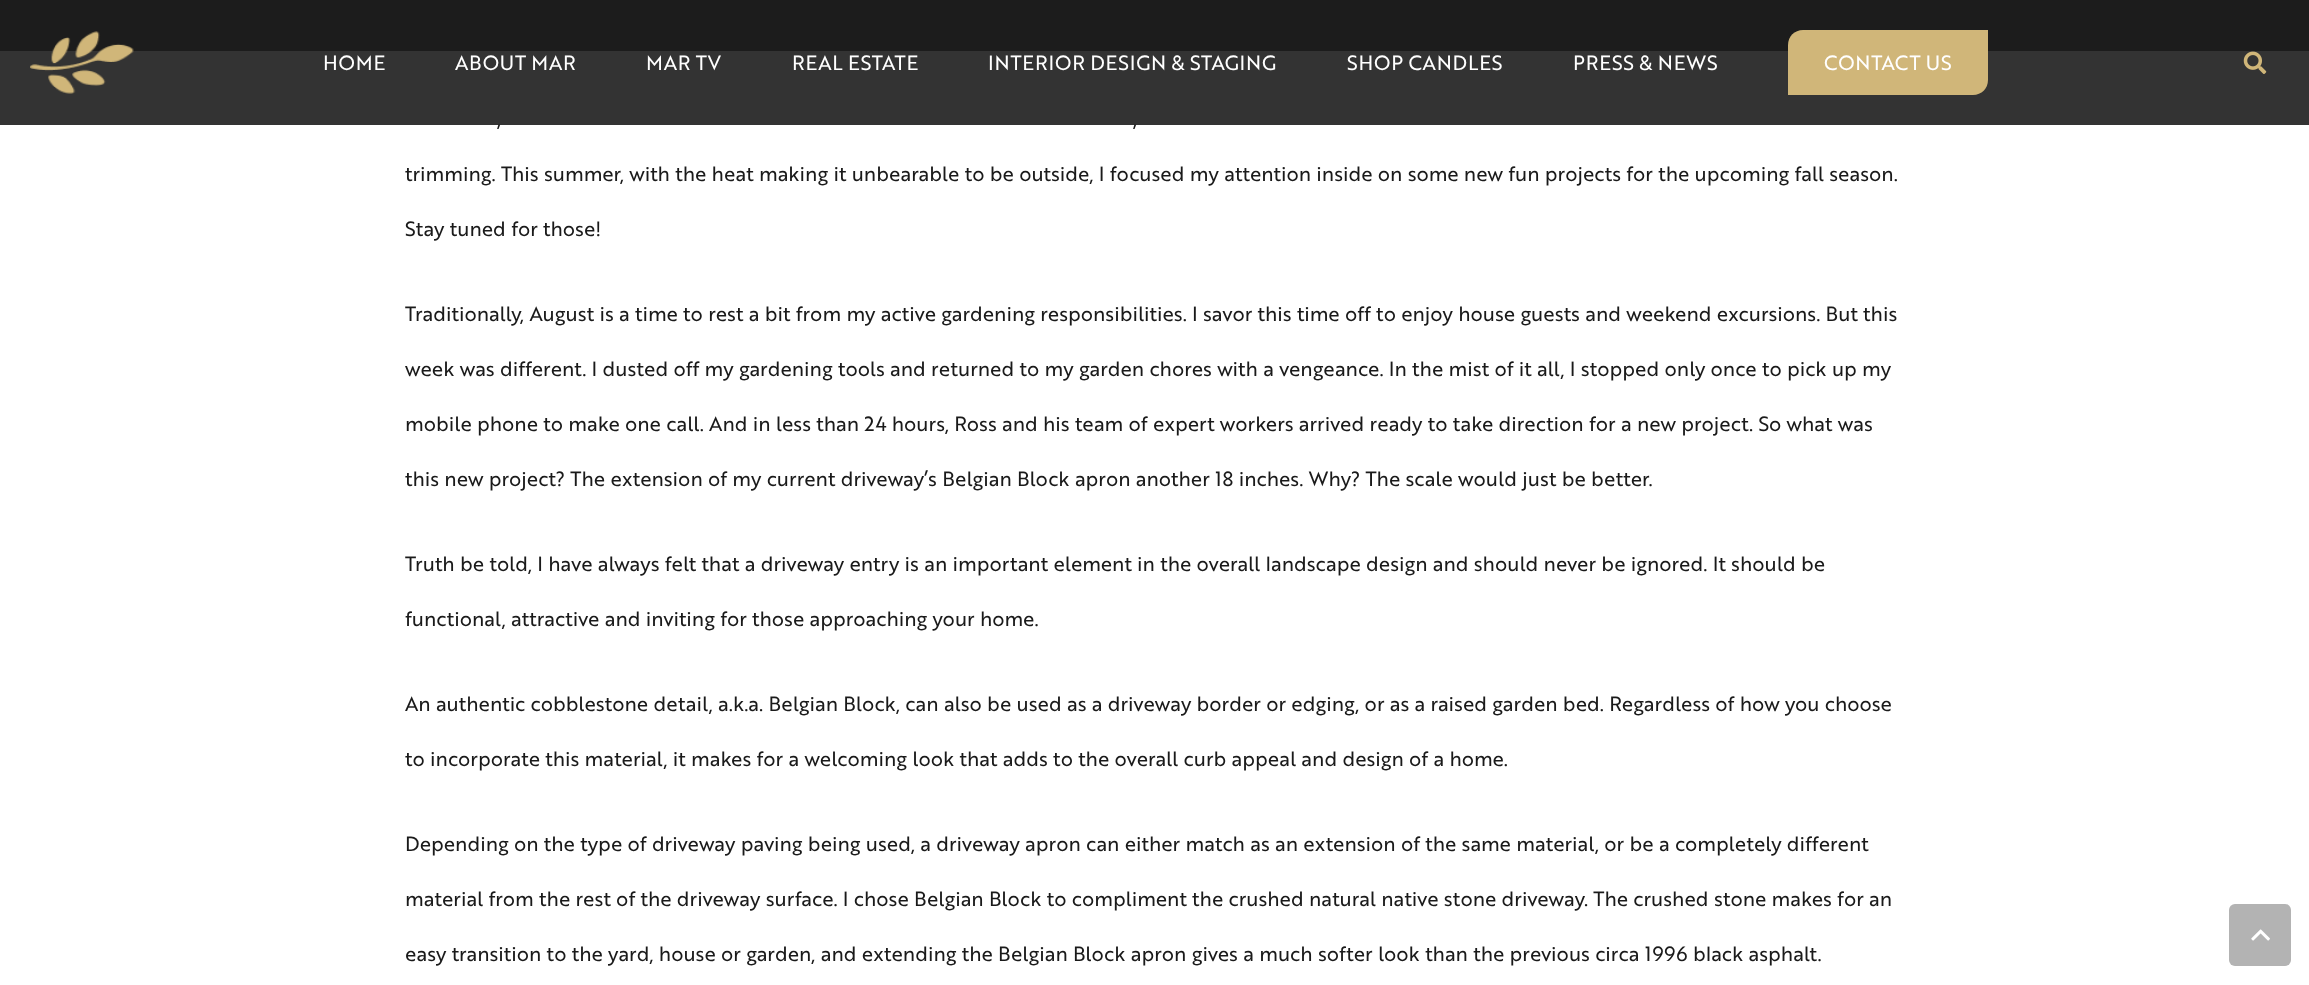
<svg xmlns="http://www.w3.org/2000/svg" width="2309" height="985">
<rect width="100%" height="100%" fill="#8b8b8b"/>
<rect y="51" width="2309" height="934" fill="#fff"/>
<text x="497" y="126" style="font-family:'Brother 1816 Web';font-size:20px;fill:#1a1a1a">,</text>
<text x="1133" y="126" style="font-family:'Brother 1816 Web';font-size:20px;fill:#1a1a1a">,</text>
<rect width="2309" height="125" fill="#000000cc"/>
<image x="30" y="31" width="104" height="63" href="media/1.png"/>
<text x="323" y="70" style="font-family:'Brother 1816 Web';font-size:20px;fill:#fff">HOME</text>
<text x="455" y="70" style="font-family:'Brother 1816 Web';font-size:20px;fill:#fff">ABOUT MAR</text>
<text x="646" y="70" style="font-family:'Brother 1816 Web';font-size:20px;fill:#fff">MAR TV</text>
<text x="792" y="70" style="font-family:'Brother 1816 Web';font-size:20px;fill:#fff">REAL ESTATE</text>
<text x="988" y="70" style="font-family:'Brother 1816 Web';font-size:20px;fill:#fff">INTERIOR DESIGN &amp; STAGING</text>
<text x="1347" y="70" style="font-family:'Brother 1816 Web';font-size:20px;fill:#fff">SHOP CANDLES</text>
<text x="1573" y="70" style="font-family:'Brother 1816 Web';font-size:20px;fill:#fff">PRESS &amp; NEWS</text>
<path d="M1803 30h185v50c0 8.5-6.5 15-15 15h-185v-50c0-8.5 6.5-15 15-15z" fill="#d0b679"/>
<text x="1824" y="70" style="font-family:'Brother 1816 Web';font-size:20px;fill:#fff">CONTACT US</text>
<image x="2243" y="51" width="24" height="23" href="media/2.png"/>
<text x="405" y="181" style="font-family:'Brother 1816 Web';font-size:20px;fill:#1a1a1a">trimming. This summer, with the heat making it unbearable to be outside, I focused my attention inside on some new fun projects for the upcoming fall season.</text>
<text x="405" y="236" style="font-family:'Brother 1816 Web';font-size:20px;fill:#1a1a1a">Stay tuned for those!</text>
<text x="405" y="321" style="font-family:'Brother 1816 Web';font-size:20px;fill:#1a1a1a">Traditionally, August is a time to rest a bit from my active gardening responsibilities. I savor this time off to enjoy house guests and weekend excursions. But this</text>
<text x="405" y="376" style="font-family:'Brother 1816 Web';font-size:20px;fill:#1a1a1a">week was different. I dusted off my gardening tools and returned to my garden chores with a vengeance. In the mist of it all, I stopped only once to pick up my</text>
<text x="405" y="431" style="font-family:'Brother 1816 Web';font-size:20px;fill:#1a1a1a">mobile phone to make one call. And in less than 24 hours, Ross and his team of expert workers arrived ready to take direction for a new project. So what was</text>
<text x="405" y="486" style="font-family:'Brother 1816 Web';font-size:20px;fill:#1a1a1a">this new project? The extension of my current driveway’s Belgian Block apron another 18 inches. Why? The scale would just be better.</text>
<text x="405" y="571" style="font-family:'Brother 1816 Web';font-size:20px;fill:#1a1a1a">Truth be told, I have always felt that a driveway entry is an important element in the overall landscape design and should never be ignored. It should be</text>
<text x="405" y="626" style="font-family:'Brother 1816 Web';font-size:20px;fill:#1a1a1a">functional, attractive and inviting for those approaching your home.</text>
<text x="405" y="711" style="font-family:'Brother 1816 Web';font-size:20px;fill:#1a1a1a">An authentic cobblestone detail, a.k.a. Belgian Block, can also be used as a driveway border or edging, or as a raised garden bed. Regardless of how you choose</text>
<text x="405" y="766" style="font-family:'Brother 1816 Web';font-size:20px;fill:#1a1a1a">to incorporate this material, it makes for a welcoming look that adds to the overall curb appeal and design of a home.</text>
<text x="405" y="851" style="font-family:'Brother 1816 Web';font-size:20px;fill:#1a1a1a">Depending on the type of driveway paving being used, a driveway apron can either match as an extension of the same material, or be a completely different</text>
<text x="405" y="906" style="font-family:'Brother 1816 Web';font-size:20px;fill:#1a1a1a">material from the rest of the driveway surface. I chose Belgian Block to compliment the crushed natural native stone driveway. The crushed stone makes for an</text>
<text x="405" y="961" style="font-family:'Brother 1816 Web';font-size:20px;fill:#1a1a1a">easy transition to the yard, house or garden, and extending the Belgian Block apron gives a much softer look than the previous circa 1996 black asphalt.</text>
<rect x="2229" y="904" width="62" height="62" rx="6" fill="#b3b3b3"/>
<image x="2251" y="929" width="19" height="12" href="media/3.png"/>
</svg>
